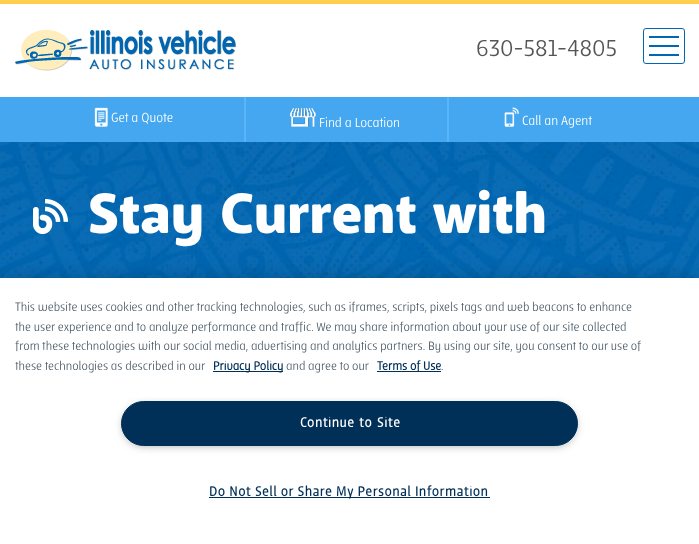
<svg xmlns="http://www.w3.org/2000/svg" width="699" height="544">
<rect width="100%" height="100%" fill="#fff"/>
<image x="0" y="4" width="699" height="93" href="media/1.png"/>
<rect width="699" height="4" fill="#ffce4c"/>
<image x="15" y="30" width="222" height="41" href="media/2.png"/>
<text x="476" y="56" style="font-family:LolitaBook;font-size:24.5px;fill:#555">630-581-4805</text>
<rect x="643.5" y="28.5" width="41" height="35" rx="2.5" fill="none" stroke="#0068b3"/>
<image x="649" y="36" width="30" height="20" href="media/3.png"/>
<rect y="97" width="699" height="45" fill="#44a7f0"/>
<image x="94" y="107" width="14" height="20" href="media/4.png"/>
<text x="111" y="122" style="font-family:LolitaBook;font-size:14px;fill:#fff">Get a Quote</text>
<rect x="244" y="97" width="2" height="45" fill="#5ab5f8"/>
<image x="290" y="108" width="26" height="19" href="media/5.png"/>
<text x="319" y="127" style="font-family:LolitaBook;font-size:14px;fill:#fff">Find a Location</text>
<rect x="447" y="97" width="2" height="45" fill="#5ab5f8"/>
<image x="504" y="107" width="15" height="20" href="media/6.png"/>
<text x="522" y="125" style="font-family:LolitaBook;font-size:14px;fill:#fff">Call an Agent</text>
<image x="0" y="142" width="699" height="136" href="media/7.png"/>
<image x="33" y="199" width="35" height="35" href="media/8.png"/>
<text x="88" y="233" style="font-family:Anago;font-size:56.25px;font-weight:900;fill:#fff">Stay Current with</text>
<rect y="278" width="699" height="266" fill="#00000033" filter="blur(9px)"/>
<rect y="278" width="699" height="266" fill="#fff"/>
<text x="15" y="311" style="font-family:LolitaBook;font-size:13px;fill:#495965">This website uses cookies and other tracking technologies, such as iframes, scripts, pixels tags and web beacons to enhance</text>
<text x="15" y="331" style="font-family:LolitaBook;font-size:13px;fill:#495965">the user experience and to analyze performance and traffic. We may share information about your use of our site collected</text>
<text x="15" y="350" style="font-family:LolitaBook;font-size:13px;fill:#495965">from these technologies with our social media, advertising and analytics partners. By using our site, you consent to our use of</text>
<text x="15" y="370" style="font-family:LolitaBook;font-size:13px;fill:#495965">these technologies as described in our</text>
<rect x="213" y="371" width="70" height="1" fill="#003057"/>
<text x="213" y="370" style="font-family:LolitaBook;font-size:13px;font-weight:bold;fill:#003057">Privacy Policy</text>
<text x="286" y="370" style="font-family:LolitaBook;font-size:13px;fill:#495965">and agree to our</text>
<rect x="377" y="371" width="64" height="1" fill="#003057"/>
<text x="377" y="370" style="font-family:LolitaBook;font-size:13px;font-weight:bold;fill:#003057">Terms of Use</text>
<text x="441" y="370" style="font-family:LolitaBook;font-size:13px;fill:#495965">.</text>
<rect x="124" y="406" width="451" height="39" rx="19.5" fill="#999" filter="blur(5px)"/>
<rect x="121.5" y="401.5" width="456" height="44" rx="22" fill="#003057" stroke="#003057"/>
<text x="300" y="427" word-spacing="1" style="font-family:LolitaBook;font-size:14.4px;font-weight:bold;letter-spacing:0.7px;fill:#fff">Continue to Site</text>
<rect x="209" y="497" width="281" height="1" fill="#003057"/>
<text x="209" y="496" style="font-family:LolitaBook;font-size:14.4px;font-weight:bold;letter-spacing:0.7px;fill:#003057">Do Not Sell or Share My Personal Information</text>
</svg>
